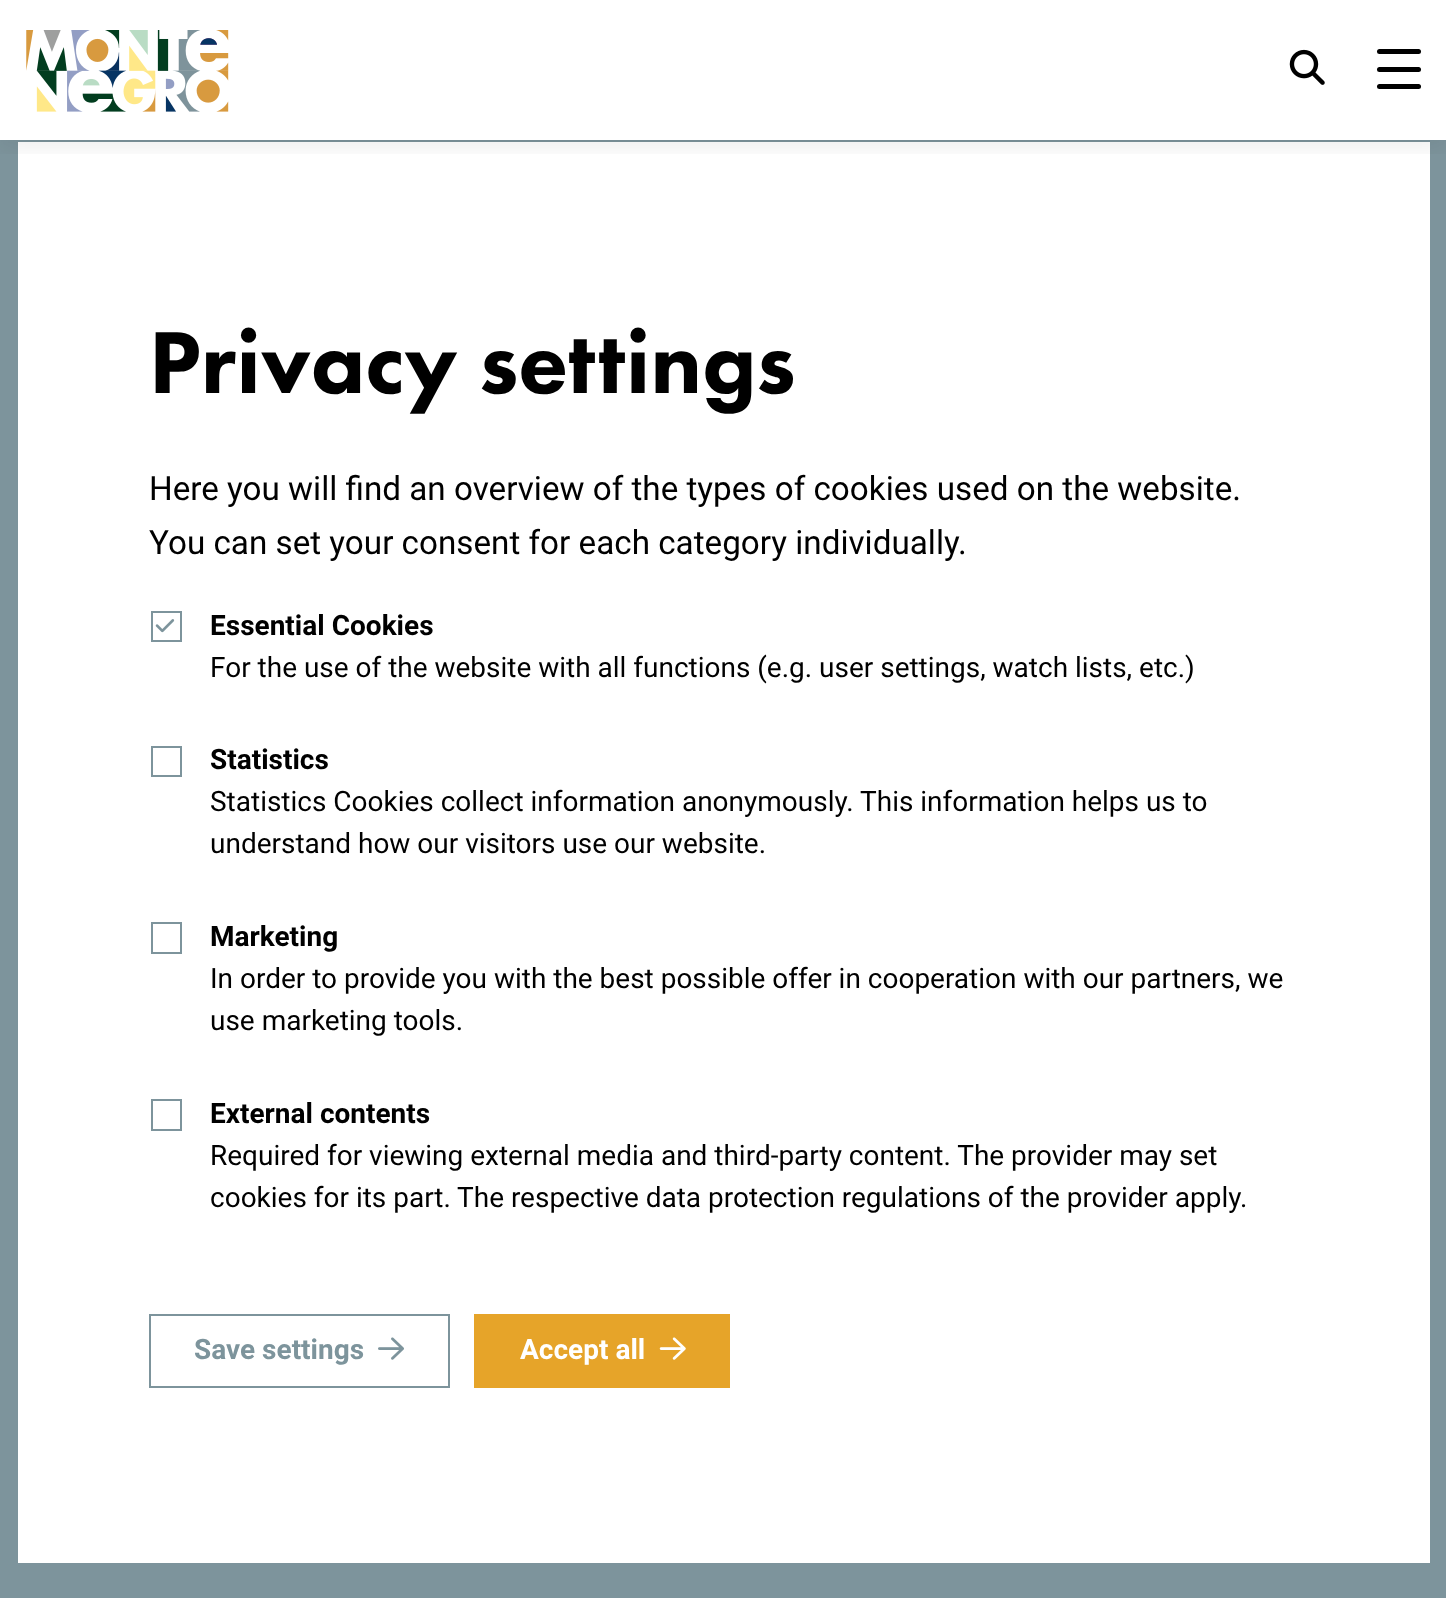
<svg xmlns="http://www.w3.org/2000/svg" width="1446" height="1598">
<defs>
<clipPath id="clip1"><rect x="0" y="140" width="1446" height="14"/></clipPath>
</defs>
<rect width="100%" height="100%" fill="#7d949c"/>
<rect width="1446" height="140" fill="#fff"/>
<rect x="18" y="142" width="1412" height="1421" fill="#fff"/>
<g clip-path="url(#clip1)">
<rect y="5" width="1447" height="140" fill="#00000014" filter="blur(14px)"/>
</g>
<image x="26" y="30" width="203" height="82" href="media/1.png"/>
<image x="1289" y="49" width="36" height="36" href="media/2.png"/>
<rect x="1377" y="67" width="44" height="5" rx="2.5" fill="#000"/>
<rect x="1377" y="49" width="44" height="5" rx="2.5" fill="#000"/>
<rect x="1377" y="84" width="44" height="5" rx="2.5" fill="#000"/>
<text x="149" y="393" style="font-family:Futura PT;font-size:91px;font-weight:900;fill:#000">Privacy settings</text>
<text x="149" y="500" style="font-family:Roboto;font-size:33.25px;fill:#000">Here you will find an overview of the types of cookies used on the website.</text>
<text x="149" y="554" style="font-family:Roboto;font-size:33.25px;fill:#000">You can set your consent for each category individually.</text>
<rect x="152" y="612" width="29" height="29" fill="none" stroke="#7d949c" stroke-width="2"/>
<text x="210" y="635" style="font-family:Roboto;font-size:28px;font-weight:bold;fill:#000">Essential Cookies</text>
<image x="155" y="619" width="20" height="14" href="media/3.png"/>
<text x="210" y="677" style="font-family:Roboto;font-size:28px;fill:#000">For the use of the website with all functions (e.g. user settings, watch lists, etc.)</text>
<rect x="152" y="747" width="29" height="29" fill="none" stroke="#7d949c" stroke-width="2"/>
<text x="210" y="769" style="font-family:Roboto;font-size:28px;font-weight:bold;fill:#000">Statistics</text>
<text x="210" y="811" style="font-family:Roboto;font-size:28px;fill:#000">Statistics Cookies collect information anonymously. This information helps us to</text>
<text x="210" y="853" style="font-family:Roboto;font-size:28px;fill:#000">understand how our visitors use our website.</text>
<rect x="152" y="923" width="29" height="30" fill="none" stroke="#7d949c" stroke-width="2"/>
<text x="210" y="946" style="font-family:Roboto;font-size:28px;font-weight:bold;fill:#000">Marketing</text>
<text x="210" y="988" style="font-family:Roboto;font-size:28px;fill:#000">In order to provide you with the best possible offer in cooperation with our partners, we</text>
<text x="210" y="1030" style="font-family:Roboto;font-size:28px;fill:#000">use marketing tools.</text>
<rect x="152" y="1100" width="29" height="30" fill="none" stroke="#7d949c" stroke-width="2"/>
<text x="210" y="1123" style="font-family:Roboto;font-size:28px;font-weight:bold;fill:#000">External contents</text>
<text x="210" y="1165" style="font-family:Roboto;font-size:28px;fill:#000">Required for viewing external media and third-party content. The provider may set</text>
<text x="210" y="1207" style="font-family:Roboto;font-size:28px;fill:#000">cookies for its part.</text>
<text x="457" y="1207" style="font-family:Roboto;font-size:28px;fill:#000">The respective data protection regulations of the provider apply.</text>
<rect x="150" y="1315" width="299" height="72" fill="none" stroke="#7d949c" stroke-width="2"/>
<text x="194" y="1359" style="font-family:Roboto;font-size:28px;font-weight:bold;fill:#7d949c">Save settings</text>
<image x="378" y="1337" width="26" height="23" href="media/4.png"/>
<rect x="474" y="1314" width="256" height="74" fill="#e6a429"/>
<text x="520" y="1359" style="font-family:Roboto;font-size:28px;font-weight:bold;fill:#fff">Accept all</text>
<image x="659" y="1337" width="27" height="23" href="media/5.png"/>
</svg>
